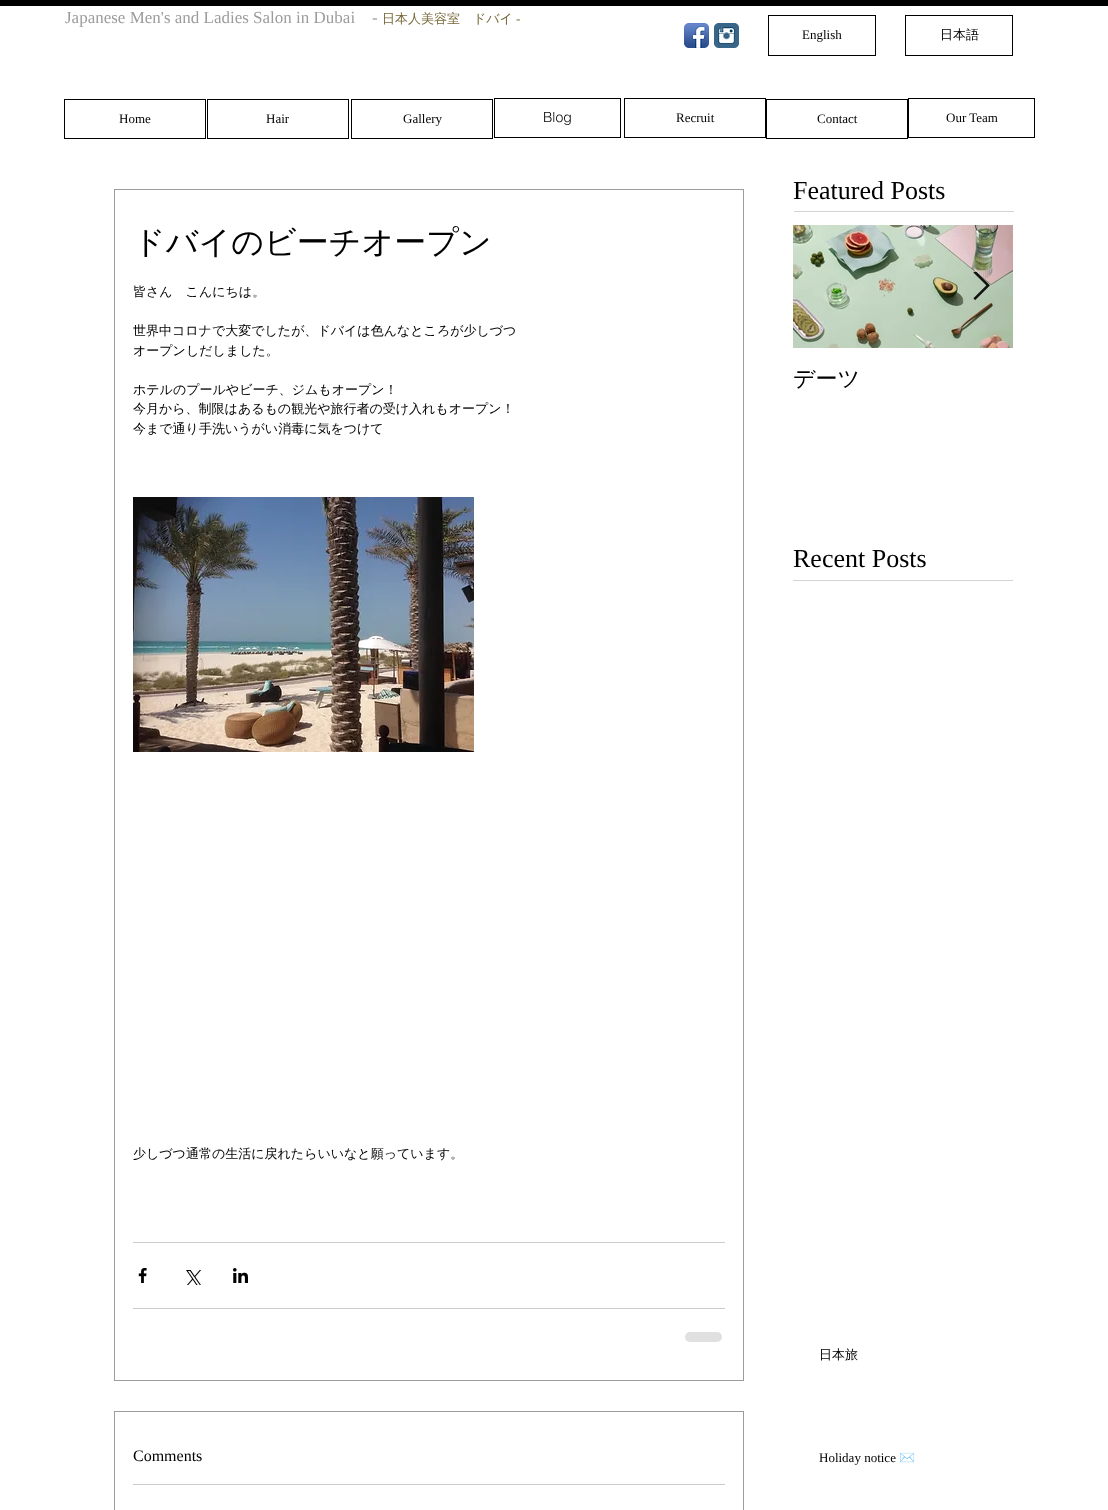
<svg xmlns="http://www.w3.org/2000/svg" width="1108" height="1510">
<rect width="100%" height="100%" fill="#fff"/>
<rect width="1108" height="6" fill="#000"/>
<text x="65" y="23" style="font-family:Liberation Serif;font-size:17px;fill:#9c9c9c" xml:space="preserve">Japanese Men's and Ladies Salon in Dubai    -</text>
<text x="382" y="23" style="font-family:WenQuanYi Zen Hei;font-size:13px;font-weight:500;fill:#756737">日本人美容室　ドバイ</text>
<text x="516" y="23" style="font-family:Liberation Serif;font-size:13px;fill:#756737">-</text>
<rect x="64.5" y="99.5" width="141" height="39" fill="none" stroke="#000"/>
<text x="119" y="123" style="font-family:Liberation Serif;font-size:13px;fill:#000">Home</text>
<rect x="207.5" y="99.5" width="141" height="39" fill="none" stroke="#000"/>
<text x="266" y="123" style="font-family:Liberation Serif;font-size:13px;fill:#000">Hair</text>
<rect x="351.5" y="99.5" width="141" height="39" fill="none" stroke="#000"/>
<text x="403" y="123" style="font-family:Liberation Serif;font-size:13px;fill:#000">Gallery</text>
<rect x="494.5" y="98.5" width="126" height="39" fill="none" stroke="#000"/>
<text x="543" y="122" style="font-family:helvetica;font-size:14px;font-weight:300;fill:#000">Blog</text>
<rect x="624.5" y="98.5" width="141" height="39" fill="none" stroke="#000"/>
<text x="676" y="122" style="font-family:Liberation Serif;font-size:13px;fill:#000">Recruit</text>
<rect x="766.5" y="99.5" width="141" height="39" fill="none" stroke="#000"/>
<text x="817" y="123" style="font-family:Liberation Serif;font-size:13px;fill:#000">Contact</text>
<rect x="908.5" y="98.5" width="126" height="39" fill="none" stroke="#000"/>
<text x="946" y="122" style="font-family:Liberation Serif;font-size:13px;fill:#000">Our Team</text>
<image x="684" y="23" width="25" height="25" href="media/1.png"/>
<image x="714" y="23" width="25" height="25" href="media/2.png"/>
<rect x="768.5" y="15.5" width="107" height="40" fill="none" stroke="#000"/>
<text x="802" y="39" style="font-family:Liberation Serif;font-size:13px;fill:#000">English</text>
<rect x="905.5" y="15.5" width="107" height="40" fill="none" stroke="#000"/>
<text x="940" y="39" style="font-family:WenQuanYi Zen Hei;font-size:13px;font-weight:500;fill:#000">日本語</text>
<text x="793" y="199" style="font-family:Liberation Serif;font-size:26px;fill:#000">Featured Posts</text>
<rect x="794" y="211" width="220" height="1" fill="#d4d4d4"/>
<rect x="114.5" y="189.5" width="629" height="1191" fill="none" stroke="#9c9c9c"/>
<text x="133" y="253" style="font-family:WenQuanYi Zen Hei;font-size:32px;font-weight:500;fill:#000">ドバイのビーチオープン</text>
<text x="133" y="296" style="font-family:WenQuanYi Zen Hei;font-size:13px;font-weight:500;fill:#000">皆さん　こんにちは。</text>
<text x="133" y="335" style="font-family:WenQuanYi Zen Hei;font-size:13px;font-weight:500;fill:#000">世界中コロナで大変でしたが、ドバイは色んなところが少しづつ</text>
<text x="133" y="355" style="font-family:WenQuanYi Zen Hei;font-size:13px;font-weight:500;fill:#000">オープンしだしました。</text>
<text x="133" y="394" style="font-family:WenQuanYi Zen Hei;font-size:13px;font-weight:500;fill:#000">ホテルのプールやビーチ、ジムもオープン！</text>
<text x="133" y="413" style="font-family:WenQuanYi Zen Hei;font-size:13px;font-weight:500;fill:#000">今月から、制限はあるもの観光や旅行者の受け入れもオープン！</text>
<text x="133" y="433" style="font-family:WenQuanYi Zen Hei;font-size:13px;font-weight:500;fill:#000">今まで通り手洗いうがい消毒に気をつけて</text>
<image x="133" y="497" width="341" height="255" href="media/3.png"/>
<text x="133" y="1158" style="font-family:WenQuanYi Zen Hei;font-size:13px;font-weight:500;fill:#000">少しづつ通常の生活に戻れたらいいなと願っています。</text>
<rect x="133" y="1242" width="592" height="1" fill="#ccc"/>
<image x="138" y="1268" width="9" height="15" href="media/4.png"/>
<image x="186" y="1270" width="15" height="15" href="media/5.png"/>
<image x="233" y="1268" width="15" height="15" href="media/6.png"/>
<rect x="133" y="1308" width="592" height="1" fill="#ccc"/>
<rect x="685" y="1332" width="37" height="10" rx="5" fill="#e0e0e0"/>
<rect x="114.5" y="1411.5" width="629" height="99" fill="none" stroke="#9c9c9c"/>
<text x="133" y="1461" style="font-family:Liberation Serif;font-size:16px;fill:#000">Comments</text>
<rect x="133" y="1484" width="592" height="1" fill="#ccc"/>
<image x="793" y="225" width="220" height="123" href="media/8.png"/>
<image x="973" y="272" width="17" height="28" href="media/7.png"/>
<text x="793" y="386" style="font-family:WenQuanYi Zen Hei;font-size:22px;font-weight:500;fill:#000">デーツ</text>
<text x="793" y="567" style="font-family:Liberation Serif;font-size:26px;fill:#000">Recent Posts</text>
<rect x="793" y="580" width="220" height="1" fill="#d4d4d4"/>
<text x="819" y="1359" style="font-family:WenQuanYi Zen Hei;font-size:13px;font-weight:500;fill:#000">日本旅</text>
<text x="819" y="1462" style="font-family:Liberation Serif;font-size:13px;fill:#000">Holiday notice</text>
<text x="899" y="1462" style="font-family:Noto Color Emoji;font-size:13px;fill:#000">✉️</text>
</svg>
